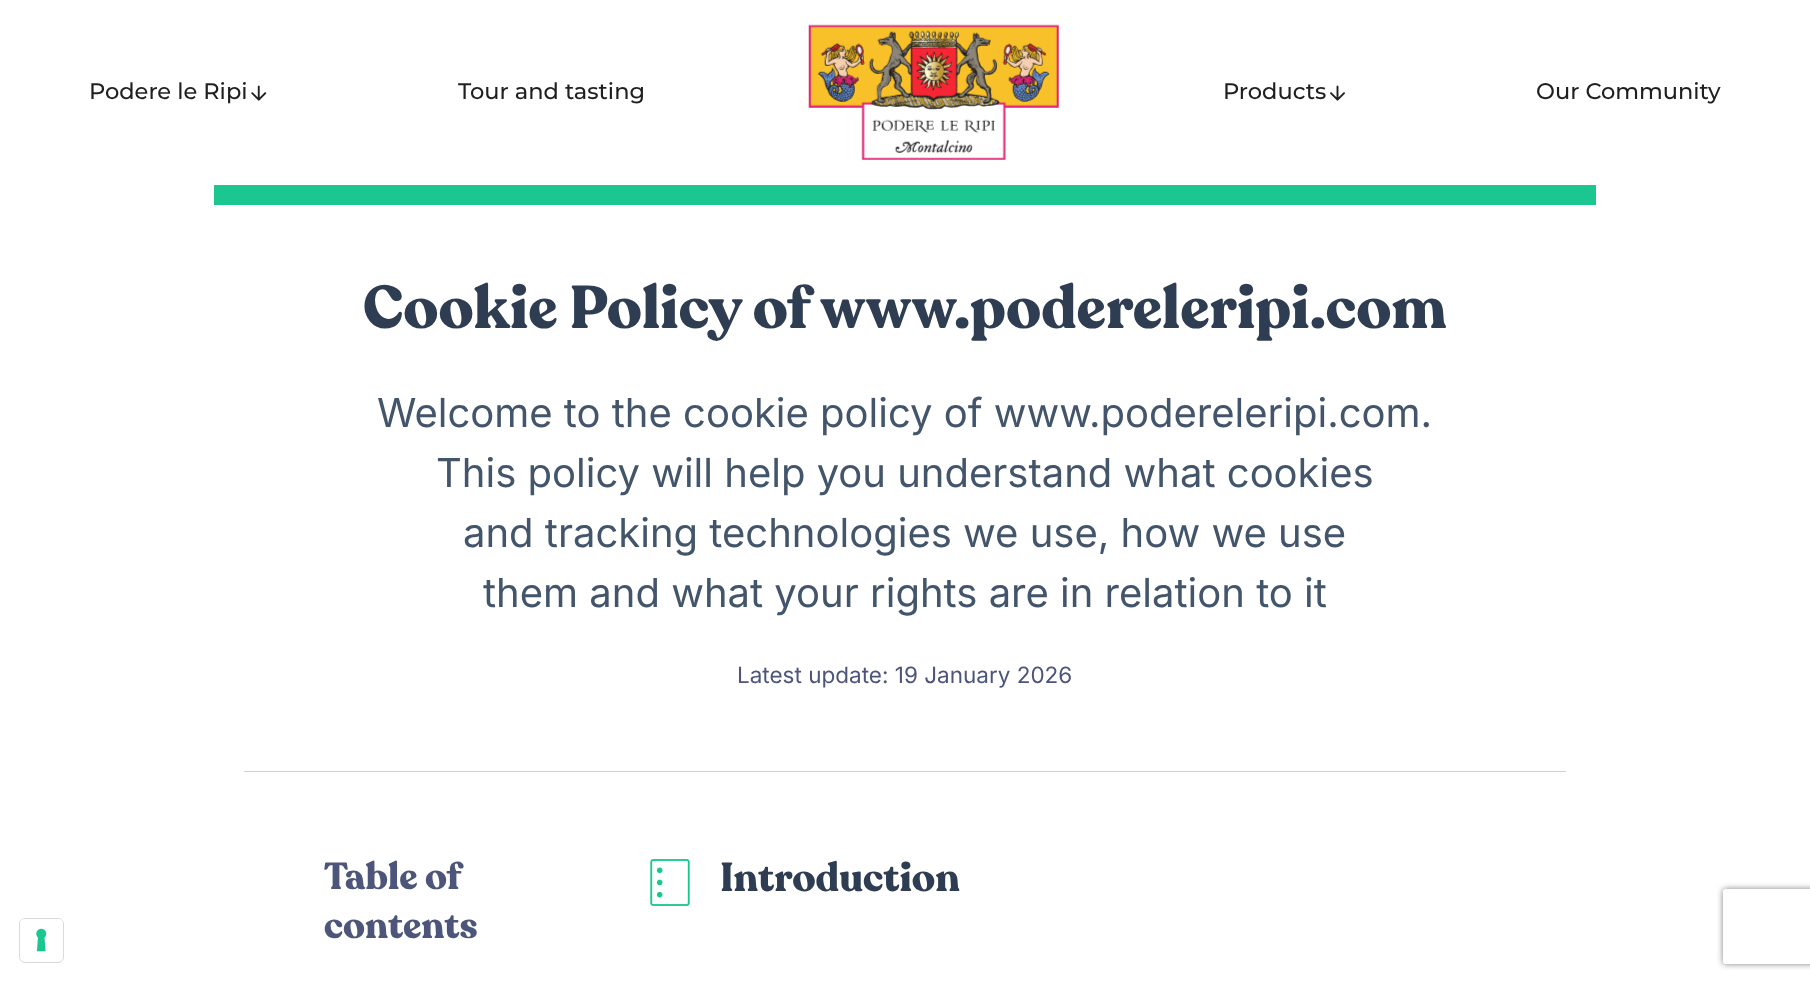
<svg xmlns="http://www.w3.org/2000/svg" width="1810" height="981">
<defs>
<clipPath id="clip1"><path d="M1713 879h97v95h-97zm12.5 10h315c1.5 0 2.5 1 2.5 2.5v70c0 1.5-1 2.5-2.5 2.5h-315c-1.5 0-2.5-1-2.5-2.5v-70c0-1.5 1-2.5 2.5-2.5z" clip-rule="evenodd"/></clipPath>
</defs>
<rect width="100%" height="100%" fill="#fff"/>
<text x="89" y="99" style="font-family:Montserrat;font-size:22.5px;font-weight:500;fill:#1f1f1f">Podere le Ripi</text>
<image x="251" y="85" width="16" height="16" href="media/1.png"/>
<text x="458" y="99" style="font-family:Montserrat;font-size:22.5px;font-weight:500;fill:#1f1f1f">Tour and tasting</text>
<image x="808" y="24" width="251" height="136" href="media/2.png"/>
<text x="1223" y="99" style="font-family:Montserrat;font-size:22.5px;font-weight:500;fill:#1f1f1f">Products</text>
<image x="1330" y="85" width="15" height="16" href="media/3.png"/>
<text x="1536" y="99" style="font-family:Montserrat;font-size:22.5px;font-weight:500;fill:#1f1f1f">Our Community</text>
<rect x="19.5" y="918.5" width="44" height="44" rx="5.5" fill="none" stroke="#d9d9d9"/>
<rect x="20" y="919" width="43" height="42" rx="5" fill="#fff"/>
<image x="36" y="928" width="11" height="24" href="media/4.png"/>
<rect x="214" y="185" width="1382" height="20" fill="#1cc691"/>
<rect x="244" y="771" width="1322" height="1" fill="#cbcee6"/>
<text x="363" y="328" style="font-family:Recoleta;font-size:60px;font-weight:bold;fill:#2e3d52">Cookie Policy of www.podereleripi.com</text>
<text x="377" y="427" style="font-family:Inter;font-size:40px;fill:#43556b">Welcome to the cookie policy of www.podereleripi.com.</text>
<text x="436" y="487" style="font-family:Inter;font-size:40px;fill:#43556b">This policy will help you understand what cookies</text>
<text x="463" y="547" style="font-family:Inter;font-size:40px;fill:#43556b">and tracking technologies we use, how we use</text>
<text x="483" y="607" style="font-family:Inter;font-size:40px;fill:#43556b">them and what your rights are in relation to it</text>
<text x="737" y="683" style="font-family:Inter;font-size:22.5px;fill:#4d567a">Latest update: 19 January 2026</text>
<text x="324" y="889" style="font-family:Recoleta;font-size:37.5px;font-weight:bold;fill:#4d567a">Table of</text>
<text x="324" y="938" style="font-family:Recoleta;font-size:37.5px;font-weight:bold;fill:#4d567a">contents</text>
<image x="650" y="859" width="40" height="47" href="media/5.png"/>
<text x="720" y="891" style="font-family:Recoleta;font-size:40px;font-weight:bold;fill:#2e3d52">Introduction</text>
<g clip-path="url(#clip1)">
<rect x="1723" y="889" width="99" height="75" rx="2.5" fill="#808080" filter="blur(3px)"/>
</g>
</svg>
